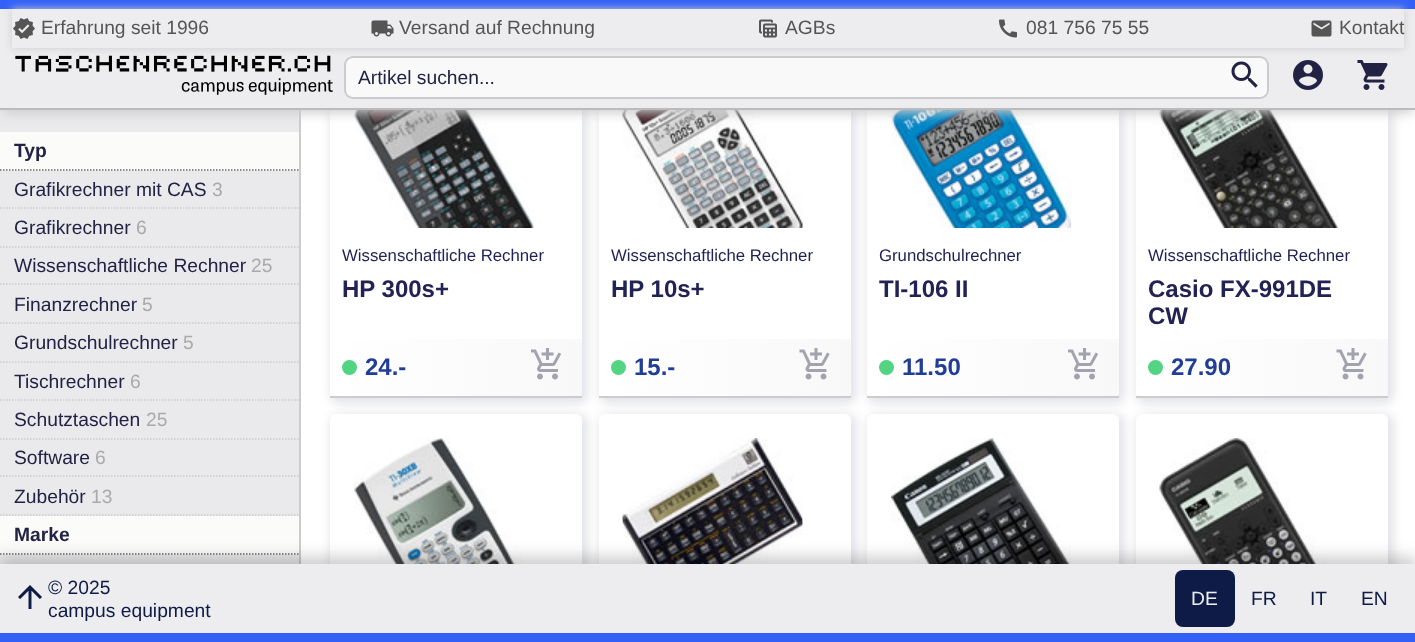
<svg xmlns="http://www.w3.org/2000/svg" width="1415" height="642">
<defs>
<clipPath id="clip1"><path d="M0 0h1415v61h-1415zm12 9h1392v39h-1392z" clip-rule="evenodd"/></clipPath>
<linearGradient id="g1" gradientUnits="userSpaceOnUse" x1="330" y1="368" x2="582" y2="368"><stop offset="0" stop-color="#fff" stop-opacity="0.7"/><stop offset="1" stop-color="#f5f5f5" stop-opacity="0.7"/></linearGradient>
<linearGradient id="g2" gradientUnits="userSpaceOnUse" x1="599" y1="368" x2="851" y2="368"><stop offset="0" stop-color="#fff" stop-opacity="0.7"/><stop offset="1" stop-color="#f5f5f5" stop-opacity="0.7"/></linearGradient>
<linearGradient id="g3" gradientUnits="userSpaceOnUse" x1="867" y1="368" x2="1119" y2="368"><stop offset="0" stop-color="#fff" stop-opacity="0.7"/><stop offset="1" stop-color="#f5f5f5" stop-opacity="0.7"/></linearGradient>
<linearGradient id="g4" gradientUnits="userSpaceOnUse" x1="1136" y1="368" x2="1388" y2="368"><stop offset="0" stop-color="#fff" stop-opacity="0.7"/><stop offset="1" stop-color="#f5f5f5" stop-opacity="0.7"/></linearGradient>
</defs>
<rect width="100%" height="100%" fill="#fff"/>
<rect y="110" width="299" height="454" fill="#eaeaed"/>
<rect x="299" y="110" width="2" height="454" fill="#ccc"/>
<rect x="330" y="39" width="258" height="365" rx="9" fill="#e4e5e9" filter="blur(5px)"/>
<rect x="330" y="39" width="252" height="359" rx="6" fill="#fff"/>
<image x="354" y="110" width="180" height="118" href="media/10.png"/>
<rect x="599" y="39" width="258" height="365" rx="9" fill="#e4e5e9" filter="blur(5px)"/>
<rect x="599" y="39" width="252" height="359" rx="6" fill="#fff"/>
<image x="622" y="110" width="181" height="118" href="media/12.png"/>
<rect x="867" y="39" width="258" height="365" rx="9" fill="#e4e5e9" filter="blur(5px)"/>
<rect x="867" y="39" width="252" height="359" rx="6" fill="#fff"/>
<image x="891" y="110" width="180" height="118" href="media/14.png"/>
<rect x="1136" y="39" width="258" height="365" rx="9" fill="#e4e5e9" filter="blur(5px)"/>
<rect x="1136" y="39" width="252" height="359" rx="6" fill="#fff"/>
<image x="1159" y="110" width="180" height="118" href="media/15.png"/>
<rect x="3" y="9" width="1410" height="104" fill="#ccc" filter="blur(6px)"/>
<rect y="9" width="1415" height="99" fill="#ededef"/>
<rect width="1415" height="9" fill="#3361f8"/>
<rect y="108" width="1415" height="2" fill="#bbb"/>
<g clip-path="url(#clip1)">
<rect x="12" y="9" width="1392" height="39" fill="#ccc" filter="blur(4px)"/>
</g>
<image x="13" y="18" width="22" height="21" href="media/1.png"/>
<text x="41" y="34" style="font-family:Liberation Sans;font-size:19.25px;fill:#555">Erfahrung seit 1996</text>
<image x="371" y="20" width="23" height="17" href="media/2.png"/>
<text x="399" y="34" style="font-family:Liberation Sans;font-size:19.25px;fill:#555">Versand auf Rechnung</text>
<image x="759" y="19" width="18" height="19" href="media/3.png"/>
<text x="785" y="34" style="font-family:Liberation Sans;font-size:19.25px;fill:#555">AGBs</text>
<image x="999" y="19" width="18" height="19" href="media/4.png"/>
<text x="1026" y="34" style="font-family:Liberation Sans;font-size:19.25px;fill:#555">081 756 75 55</text>
<image x="1311" y="20" width="21" height="17" href="media/5.png"/>
<text x="1339" y="34" style="font-family:Liberation Sans;font-size:19.25px;fill:#555">Kontakt</text>
<image x="15" y="55" width="318" height="40" href="media/6.png"/>
<rect x="345" y="57" width="923" height="41" rx="8" fill="#f9f9f9" stroke="#ccc" stroke-width="2"/>
<text x="358" y="84" style="font-family:Liberation Sans;font-size:19.25px;fill:#224">Artikel suchen...</text>
<image x="1231" y="61" width="27" height="27" href="media/7.png"/>
<image x="1293" y="60" width="30" height="30" href="media/8.png"/>
<image x="1357" y="60" width="31" height="30" href="media/9.png"/>
<rect y="132" width="299" height="39" fill="#fbfbfa"/>
<path d="M0 170h298.5" fill="none" stroke="#666" stroke-width="1.5" stroke-dasharray="1.5 1.5"/>
<text x="14" y="157" style="font-family:Liberation Sans;font-size:19.25px;font-weight:bold;fill:#224">Typ</text>
<path d="M0 208h298.5" fill="none" stroke="#ccc" stroke-width="1.5" stroke-dasharray="1.5 1.5"/>
<text x="14" y="196" style="font-family:Liberation Sans;font-size:19.25px;fill:#224">Grafikrechner mit CAS</text>
<text x="212" y="196" style="font-family:Liberation Sans;font-size:19.25px;fill:#aaa">3</text>
<path d="M0 247h298.5" fill="none" stroke="#ccc" stroke-width="1.5" stroke-dasharray="1.5 1.5"/>
<text x="14" y="234" style="font-family:Liberation Sans;font-size:19.25px;fill:#224">Grafikrechner</text>
<text x="136" y="234" style="font-family:Liberation Sans;font-size:19.25px;fill:#aaa">6</text>
<path d="M0 284h298.5" fill="none" stroke="#ccc" stroke-width="1.5" stroke-dasharray="1.5 1.5"/>
<text x="14" y="272" style="font-family:Liberation Sans;font-size:19.25px;fill:#224">Wissenschaftliche Rechner</text>
<text x="251" y="272" style="font-family:Liberation Sans;font-size:19.25px;fill:#aaa">25</text>
<path d="M0 323h298.5" fill="none" stroke="#ccc" stroke-width="1.5" stroke-dasharray="1.5 1.5"/>
<text x="14" y="311" style="font-family:Liberation Sans;font-size:19.25px;fill:#224">Finanzrechner</text>
<text x="142" y="311" style="font-family:Liberation Sans;font-size:19.25px;fill:#aaa">5</text>
<path d="M0 362h298.5" fill="none" stroke="#ccc" stroke-width="1.5" stroke-dasharray="1.5 1.5"/>
<text x="14" y="349" style="font-family:Liberation Sans;font-size:19.25px;fill:#224">Grundschulrechner</text>
<text x="183" y="349" style="font-family:Liberation Sans;font-size:19.25px;fill:#aaa">5</text>
<path d="M0 400h298.5" fill="none" stroke="#ccc" stroke-width="1.5" stroke-dasharray="1.5 1.5"/>
<text x="14" y="388" style="font-family:Liberation Sans;font-size:19.25px;fill:#224">Tischrechner</text>
<text x="130" y="388" style="font-family:Liberation Sans;font-size:19.25px;fill:#aaa">6</text>
<path d="M0 439h298.5" fill="none" stroke="#ccc" stroke-width="1.5" stroke-dasharray="1.5 1.5"/>
<text x="14" y="426" style="font-family:Liberation Sans;font-size:19.25px;fill:#224">Schutztaschen</text>
<text x="146" y="426" style="font-family:Liberation Sans;font-size:19.25px;fill:#aaa">25</text>
<path d="M0 476h298.5" fill="none" stroke="#ccc" stroke-width="1.5" stroke-dasharray="1.5 1.5"/>
<text x="14" y="464" style="font-family:Liberation Sans;font-size:19.25px;fill:#224">Software</text>
<text x="95" y="464" style="font-family:Liberation Sans;font-size:19.25px;fill:#aaa">6</text>
<path d="M0 515h298.5" fill="none" stroke="#ccc" stroke-width="1.5" stroke-dasharray="1.5 1.5"/>
<text x="14" y="503" style="font-family:Liberation Sans;font-size:19.25px;fill:#224">Zubehör</text>
<text x="91" y="503" style="font-family:Liberation Sans;font-size:19.25px;fill:#aaa">13</text>
<rect y="516" width="299" height="39" fill="#fbfbfa"/>
<path d="M0 554h298.5" fill="none" stroke="#666" stroke-width="1.5" stroke-dasharray="1.5 1.5"/>
<text x="14" y="541" style="font-family:Liberation Sans;font-size:19.25px;font-weight:bold;fill:#224">Marke</text>
<text x="342" y="261" style="font-family:Liberation Sans;font-size:16.75px;fill:#225">Wissenschaftliche Rechner</text>
<text x="342" y="297" style="font-family:Liberation Sans;font-size:24px;font-weight:bold;fill:#225">HP 300s+</text>
<rect x="330" y="339" width="252" height="57" fill="url(#g1)"/>
<rect x="330" y="396" width="252" height="2" fill="#ccc"/>
<circle cx="349.5" cy="367.5" r="7.5" fill="#52d482"/>
<text x="365" y="375" style="font-family:Liberation Sans;font-size:24px;font-weight:bold;fill:#213d97">24.-</text>
<image x="531" y="348" width="30" height="32" href="media/11.png"/>
<text x="611" y="261" style="font-family:Liberation Sans;font-size:16.75px;fill:#225">Wissenschaftliche Rechner</text>
<text x="611" y="297" style="font-family:Liberation Sans;font-size:24px;font-weight:bold;fill:#225">HP 10s+</text>
<rect x="599" y="339" width="252" height="57" fill="url(#g2)"/>
<rect x="599" y="396" width="252" height="2" fill="#ccc"/>
<circle cx="618.5" cy="367.5" r="7.5" fill="#52d482"/>
<text x="634" y="375" style="font-family:Liberation Sans;font-size:24px;font-weight:bold;fill:#213d97">15.-</text>
<image x="799" y="348" width="31" height="32" href="media/13.png"/>
<text x="879" y="261" style="font-family:Liberation Sans;font-size:16.75px;fill:#225">Grundschulrechner</text>
<text x="879" y="297" style="font-family:Liberation Sans;font-size:24px;font-weight:bold;fill:#225">TI-106 II</text>
<rect x="867" y="339" width="252" height="57" fill="url(#g3)"/>
<rect x="867" y="396" width="252" height="2" fill="#ccc"/>
<circle cx="886.5" cy="367.5" r="7.5" fill="#52d482"/>
<text x="902" y="375" style="font-family:Liberation Sans;font-size:24px;font-weight:bold;fill:#213d97">11.50</text>
<image x="1068" y="348" width="30" height="32" href="media/11.png"/>
<text x="1148" y="261" style="font-family:Liberation Sans;font-size:16.75px;fill:#225">Wissenschaftliche Rechner</text>
<text x="1148" y="297" style="font-family:Liberation Sans;font-size:24px;font-weight:bold;fill:#225">Casio FX-991DE</text>
<text x="1148" y="324" style="font-family:Liberation Sans;font-size:24px;font-weight:bold;fill:#225">CW</text>
<rect x="1136" y="339" width="252" height="57" fill="url(#g4)"/>
<rect x="1136" y="396" width="252" height="2" fill="#ccc"/>
<circle cx="1155.5" cy="367.5" r="7.5" fill="#52d482"/>
<text x="1171" y="375" style="font-family:Liberation Sans;font-size:24px;font-weight:bold;fill:#213d97">27.90</text>
<image x="1336" y="348" width="31" height="32" href="media/13.png"/>
<rect x="330" y="414" width="258" height="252" rx="9" fill="#e4e5e9" filter="blur(5px)"/>
<rect x="330" y="414" width="252" height="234" rx="6" fill="#fff"/>
<image x="354" y="438" width="180" height="126" href="media/16.png"/>
<rect x="599" y="414" width="258" height="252" rx="9" fill="#e4e5e9" filter="blur(5px)"/>
<rect x="599" y="414" width="252" height="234" rx="6" fill="#fff"/>
<image x="622" y="438" width="181" height="126" href="media/17.png"/>
<rect x="867" y="414" width="258" height="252" rx="9" fill="#e4e5e9" filter="blur(5px)"/>
<rect x="867" y="414" width="252" height="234" rx="6" fill="#fff"/>
<image x="891" y="438" width="180" height="126" href="media/18.png"/>
<rect x="1136" y="414" width="258" height="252" rx="9" fill="#e4e5e9" filter="blur(5px)"/>
<rect x="1136" y="414" width="252" height="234" rx="6" fill="#fff"/>
<image x="1159" y="438" width="180" height="126" href="media/19.png"/>
<rect y="557" width="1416" height="78" fill="#00000033" filter="blur(7.5px)"/>
<rect y="564" width="1415" height="69" fill="#ededef"/>
<rect y="633" width="1415" height="9" fill="#3361f8"/>
<image x="18" y="585" width="24" height="24" href="media/20.png"/>
<text x="48" y="594" style="font-family:Liberation Sans;font-size:19.25px;fill:#0e1b46">© 2025</text>
<text x="48" y="617" style="font-family:Liberation Sans;font-size:19.25px;fill:#0e1b46">campus equipment</text>
<rect x="1175" y="570" width="60" height="57" rx="8" fill="#0e1b46"/>
<text x="1191" y="605" style="font-family:Liberation Sans;font-size:19.25px;fill:#ededef">DE</text>
<text x="1251" y="605" style="font-family:Liberation Sans;font-size:19.25px;fill:#0e1b46">FR</text>
<text x="1310" y="605" style="font-family:Liberation Sans;font-size:19.25px;fill:#0e1b46">IT</text>
<text x="1361" y="605" style="font-family:Liberation Sans;font-size:19.25px;fill:#0e1b46">EN</text>
</svg>
